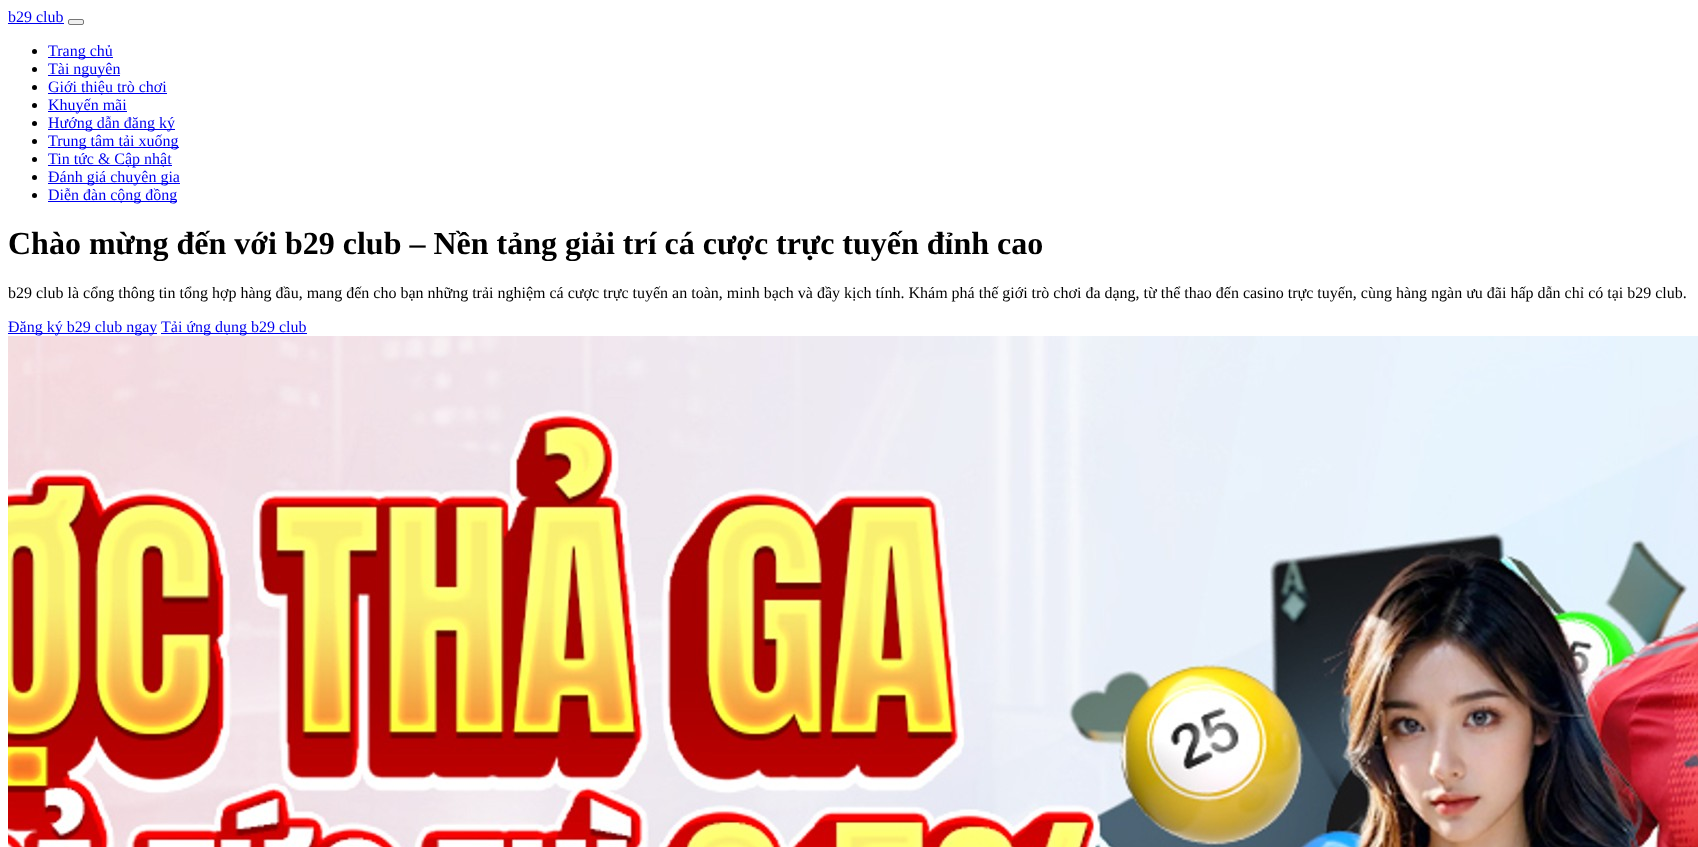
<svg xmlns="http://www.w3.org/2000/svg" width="1698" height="847">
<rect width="100%" height="100%" fill="#fff"/>
<text x="8" y="22" style="font-family:Liberation Serif;font-size:16px;fill:#00e">b29 club</text>
<rect x="8" y="23" width="56" height="1" fill="#00e"/>
<rect x="68.5" y="19.5" width="15" height="5" rx="1.5" fill="#efefef" stroke="#767676"/>
<circle cx="34.5" cy="51.5" r="2.5" fill="#000"/>
<rect x="48" y="57" width="65" height="1" fill="#00e"/>
<text x="48" y="56" style="font-family:Liberation Serif;font-size:16px;fill:#00e">Trang chủ</text>
<circle cx="34.5" cy="69.5" r="2.5" fill="#000"/>
<rect x="48" y="75" width="72" height="1" fill="#00e"/>
<text x="48" y="74" style="font-family:Liberation Serif;font-size:16px;fill:#00e">Tài nguyên</text>
<circle cx="34.5" cy="87.5" r="2.5" fill="#000"/>
<rect x="48" y="93" width="119" height="1" fill="#00e"/>
<text x="48" y="92" style="font-family:Liberation Serif;font-size:16px;fill:#00e">Giới thiệu trò chơi</text>
<circle cx="34.5" cy="105.5" r="2.5" fill="#000"/>
<rect x="48" y="111" width="79" height="1" fill="#00e"/>
<text x="48" y="110" style="font-family:Liberation Serif;font-size:16px;fill:#00e">Khuyến mãi</text>
<circle cx="34.5" cy="123.5" r="2.5" fill="#000"/>
<rect x="48" y="129" width="127" height="1" fill="#00e"/>
<text x="48" y="128" style="font-family:Liberation Serif;font-size:16px;fill:#00e">Hướng dẫn đăng ký</text>
<circle cx="34.5" cy="141.5" r="2.5" fill="#000"/>
<rect x="48" y="147" width="131" height="1" fill="#00e"/>
<text x="48" y="146" style="font-family:Liberation Serif;font-size:16px;fill:#00e">Trung tâm tải xuống</text>
<circle cx="34.5" cy="159.5" r="2.5" fill="#000"/>
<rect x="48" y="165" width="124" height="1" fill="#00e"/>
<text x="48" y="164" style="font-family:Liberation Serif;font-size:16px;fill:#00e">Tin tức &amp; Cập nhật</text>
<circle cx="34.5" cy="177.5" r="2.5" fill="#000"/>
<rect x="48" y="183" width="132" height="1" fill="#00e"/>
<text x="48" y="182" style="font-family:Liberation Serif;font-size:16px;fill:#00e">Đánh giá chuyên gia</text>
<circle cx="34.5" cy="195.5" r="2.5" fill="#000"/>
<rect x="48" y="201" width="129" height="1" fill="#00e"/>
<text x="48" y="200" style="font-family:Liberation Serif;font-size:16px;fill:#00e">Diễn đàn cộng đồng</text>
<text x="8" y="254" style="font-family:Liberation Serif;font-size:32px;font-weight:bold;fill:#000">Chào mừng đến với b29 club – Nền tảng giải trí cá cược trực tuyến đỉnh cao</text>
<text x="8" y="298" style="font-family:Liberation Serif;font-size:16px;fill:#000">b29 club là cổng thông tin tổng hợp hàng đầu, mang đến cho bạn những trải nghiệm cá cược trực tuyến an toàn, minh bạch và đầy kịch tính. Khám phá thế giới trò chơi đa dạng, từ thể thao đến casino trực tuyến, cùng hàng ngàn ưu đãi hấp dẫn chỉ có tại b29 club.</text>
<rect x="8" y="333" width="149" height="1" fill="#00e"/>
<text x="8" y="332" style="font-family:Liberation Serif;font-size:16px;fill:#00e">Đăng ký b29 club ngay</text>
<rect x="161" y="333" width="146" height="1" fill="#00e"/>
<text x="161" y="332" style="font-family:Liberation Serif;font-size:16px;fill:#00e">Tải ứng dụng b29 club</text>
<image x="8" y="336" width="1690" height="511" href="media/1.png"/>
</svg>
